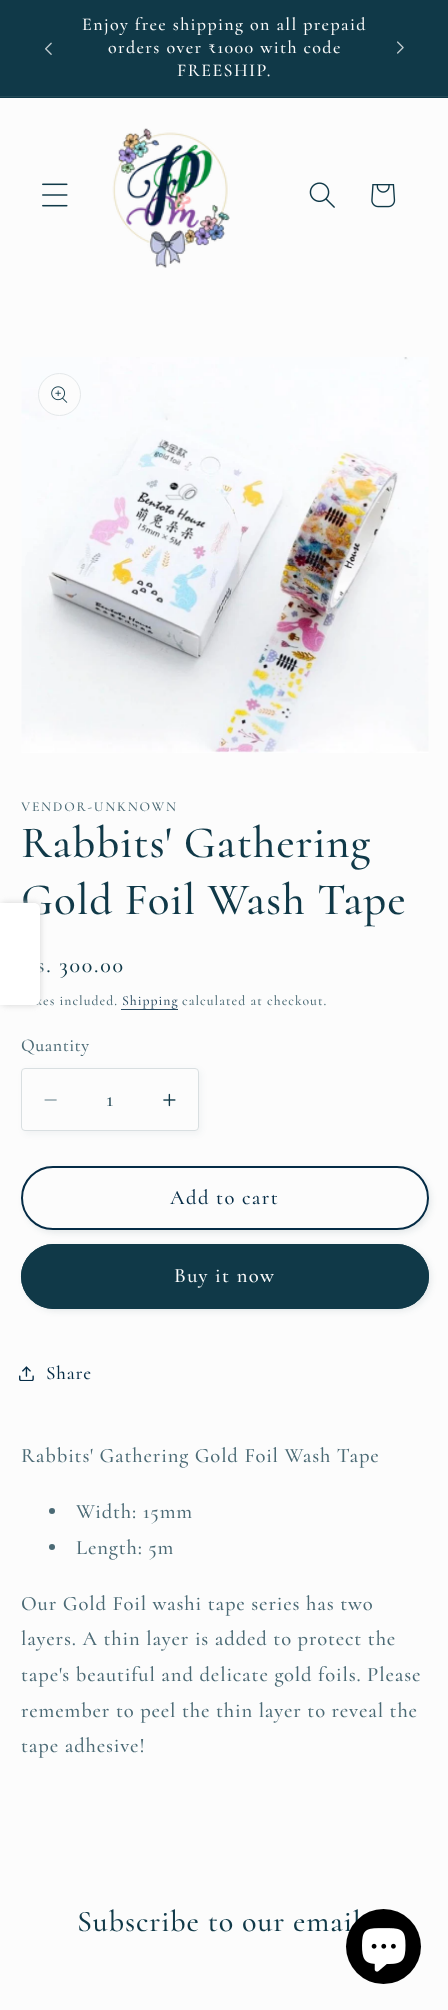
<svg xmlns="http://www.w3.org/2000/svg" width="448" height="2010">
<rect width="100%" height="100%" fill="#fcfcfc"/>
<rect width="448" height="98" fill="#103948"/>
<rect y="96" width="448" height="1" fill="#234956"/>
<image x="45" y="42" width="7" height="13" href="media/1.png"/>
<text x="82" y="30" style="font-family:Cormorant;font-size:18px;font-weight:500;letter-spacing:1.4px;fill:#fcfcfc">Enjoy free shipping on all prepaid</text>
<text x="108" y="53" style="font-family:Cormorant;font-size:18px;font-weight:500;letter-spacing:1.4px;fill:#fcfcfc">orders over ₹1000 with code</text>
<text x="177" y="76" style="font-family:Cormorant;font-size:18px;font-weight:500;letter-spacing:1.4px;fill:#fcfcfc">FREESHIP.</text>
<image x="397" y="41" width="7" height="13" href="media/2.png"/>
<image x="42" y="183" width="26" height="24" href="media/3.png"/>
<image x="112" y="128" width="118" height="140" href="media/4.png"/>
<image x="309" y="182" width="26" height="26" href="media/5.png"/>
<image x="371" y="184" width="25" height="24" href="media/6.png"/>
<image x="21" y="357" width="408" height="396" href="media/7.png"/>
<circle cx="59.5" cy="394.5" r="21" fill="#fcfcfc" stroke="#e4e8ea"/>
<image x="51" y="386" width="17" height="17" href="media/8.png"/>
<text x="21" y="811" style="font-family:Cormorant;font-size:13.75px;font-weight:500;letter-spacing:1.75px;fill:#4b6a75">VENDOR-UNKNOWN</text>
<text x="21" y="857" style="font-family:Cormorant;font-size:45px;font-weight:500;letter-spacing:0.9px;fill:#103948">Rabbits' Gathering</text>
<text x="21" y="914" style="font-family:Cormorant;font-size:45px;font-weight:500;letter-spacing:0.9px;fill:#103948">Gold Foil Wash Tape</text>
<text x="37" y="972" style="font-family:Cormorant;font-size:22px;font-weight:500;letter-spacing:1.75px;fill:#103948">s. 300.00</text>
<text x="36" y="1005" style="font-family:Cormorant;font-size:13.75px;font-weight:500;letter-spacing:1px;fill:#4b6a75">xes included.</text>
<text x="122" y="1005" style="font-family:Cormorant;font-size:13.75px;font-weight:500;letter-spacing:1px;fill:#2a4b61">Shipping</text>
<rect x="121" y="1009" width="57" height="1" fill="#2a4b61"/>
<text x="182" y="1005" style="font-family:Cormorant;font-size:13.75px;font-weight:500;letter-spacing:1px;fill:#4b6a75">calculated at checkout.</text>
<text x="21" y="1051" style="font-family:Cormorant;font-size:18px;font-weight:500;letter-spacing:0.5px;fill:#4b6a75">Quantity</text>
<rect x="24" y="1070" width="177" height="64" rx="4" fill="#1039480d" filter="blur(3px)"/>
<rect x="21" y="1068" width="178" height="63" rx="4" fill="#fcfcfc"/>
<image x="44" y="1099" width="13" height="2" href="media/9.png"/>
<image x="163" y="1093" width="13" height="14" href="media/10.png"/>
<rect x="21.5" y="1068.5" width="177" height="62" rx="3.5" fill="none" stroke="#d9dfe1"/>
<text x="106" y="1106" style="font-family:Cormorant;font-size:22px;font-weight:500;fill:#335663">1</text>
<rect x="24" y="1169" width="407" height="64" rx="32" fill="#1039481a" filter="blur(3px)"/>
<rect x="21" y="1166" width="408" height="64" rx="32" fill="#fcfcfc"/>
<rect x="21.5" y="1166.5" width="407" height="63" rx="31.5" fill="none" stroke="#fcfcfc"/>
<rect x="22" y="1167" width="406" height="62" rx="31" fill="none" stroke="#052c46" stroke-width="2"/>
<text x="170" y="1204" style="font-family:Cormorant;font-size:20.6px;font-weight:500;letter-spacing:1.4px;fill:#052c46">Add to cart</text>
<rect x="24" y="1246" width="407" height="65" rx="32.5" fill="#1039481a" filter="blur(3px)"/>
<rect x="21" y="1244" width="408" height="65" rx="32.5" fill="#103948"/>
<rect x="21.5" y="1244.5" width="407" height="64" rx="32" fill="none" stroke="#103948"/>
<text x="174" y="1282" style="font-family:Cormorant;font-size:20.6px;font-weight:500;letter-spacing:1.4px;fill:#fcfcfc">Buy it now</text>
<image x="19" y="1366" width="15" height="15" href="media/11.png"/>
<text x="46" y="1379" style="font-family:Cormorant;font-size:19px;font-weight:500;letter-spacing:0.85px;fill:#052c46">Share</text>
<text x="21" y="1462" style="font-family:Cormorant;font-size:20.6px;font-weight:500;letter-spacing:0.85px;fill:#4b6a75">Rabbits' Gathering Gold Foil Wash Tape</text>
<circle cx="52" cy="1511" r="3" fill="#4b6a75"/>
<text x="76" y="1518" style="font-family:Cormorant;font-size:20.6px;font-weight:500;letter-spacing:0.85px;fill:#4b6a75">Width: 15mm</text>
<circle cx="52" cy="1547" r="3" fill="#4b6a75"/>
<text x="76" y="1554" style="font-family:Cormorant;font-size:20.6px;font-weight:500;letter-spacing:0.85px;fill:#4b6a75">Length: 5m</text>
<text x="21" y="1610" style="font-family:Cormorant;font-size:20.6px;font-weight:500;letter-spacing:0.85px;fill:#4b6a75">Our Gold Foil washi tape series has two</text>
<text x="21" y="1645" style="font-family:Cormorant;font-size:20.6px;font-weight:500;letter-spacing:0.85px;fill:#4b6a75">layers. A thin layer is added to protect the</text>
<text x="21" y="1681" style="font-family:Cormorant;font-size:20.6px;font-weight:500;letter-spacing:0.85px;fill:#4b6a75">tape's beautiful and delicate gold foils. Please</text>
<text x="21" y="1717" style="font-family:Cormorant;font-size:20.6px;font-weight:500;letter-spacing:0.85px;fill:#4b6a75">remember to peel the thin layer to reveal the</text>
<text x="21" y="1752" style="font-family:Cormorant;font-size:20.6px;font-weight:500;letter-spacing:0.85px;fill:#4b6a75">tape adhesive!</text>
<rect y="903" width="40" height="102" rx="6" fill="#d3d3d3" filter="blur(3px)"/>
<path d="M0 903h34c3.5 0 6 2.5 6 6v90c0 3.5-2.5 6-6 6h-34z" fill="#fff"/>
<text x="77" y="1931" style="font-family:Cormorant;font-size:30px;font-weight:500;letter-spacing:0.9px;fill:#103948">Subscribe to our email</text>
<circle cx="383.5" cy="1946.5" r="37.5" fill="#000"/>
<image x="362" y="1928" width="44" height="44" href="media/12.png"/>
</svg>
